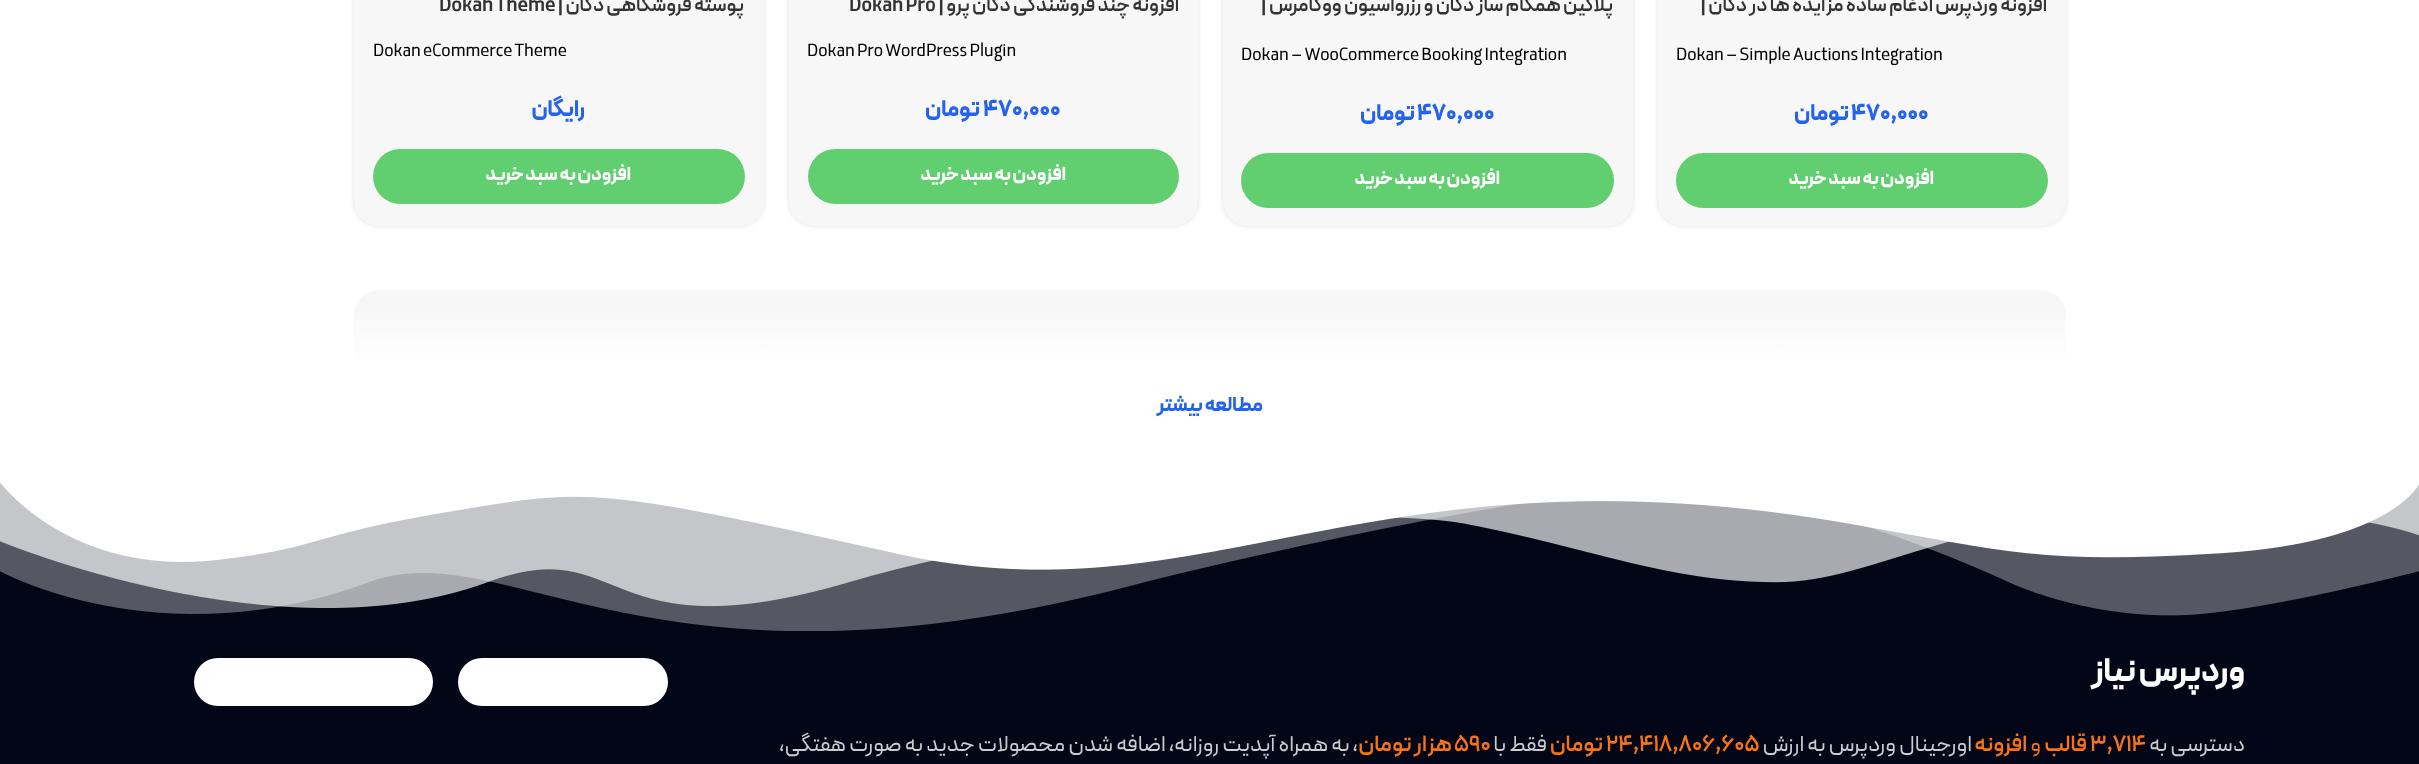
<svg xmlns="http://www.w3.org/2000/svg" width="2419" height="764">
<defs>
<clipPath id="clip1"><rect x="354" y="290" width="1712" height="143" rx="25"/></clipPath>
<linearGradient id="g1" gradientUnits="userSpaceOnUse" x1="1210" y1="307" x2="1210" y2="433"><stop offset="0" stop-color="#fff" stop-opacity="0"/><stop offset="0.45" stop-color="#fff"/></linearGradient>
</defs>
<rect width="100%" height="100%" fill="#fff"/>
<rect x="1658" y="-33" width="408" height="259" rx="25" fill="#0000001f" filter="blur(2.5px)"/>
<rect x="1658" y="-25" width="408" height="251" rx="25" fill="#f7f7f7"/>
<text x="2047" y="11" style="font-family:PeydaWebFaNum;font-size:20px;font-weight:600;direction:rtl;fill:#333">افزونه وردپرس ادغام ساده مزایده ها در دکان |</text>
<text x="1676" y="60" style="font-family:PeydaWebFaNum;font-size:17.5px;fill:#000">Dokan – Simple Auctions Integration</text>
<text x="1851" y="120" style="font-family:PeydaWebFaNum;font-size:22.5px;font-weight:800;fill:#2563eb">۴۷۰,۰۰۰</text>
<text x="1849" y="120" style="font-family:PeydaWebFaNum;font-size:22.5px;font-weight:800;direction:rtl;fill:#2563eb">تومان</text>
<rect x="1676" y="153" width="372" height="55" rx="27.5" fill="#61ce70"/>
<text x="1934" y="184" style="font-family:PeydaWebFaNum;font-size:18.75px;font-weight:800;direction:rtl;fill:#fff">افزودن به سبد خرید</text>
<rect x="1223" y="-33" width="410" height="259" rx="25" fill="#0000001f" filter="blur(2.5px)"/>
<rect x="1223" y="-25" width="410" height="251" rx="25" fill="#f7f7f7"/>
<text x="1613" y="11" style="font-family:PeydaWebFaNum;font-size:20px;font-weight:600;direction:rtl;fill:#333">پلاگین همگام ساز دکان و رزرواسیون ووکامرس |</text>
<text x="1241" y="60" style="font-family:PeydaWebFaNum;font-size:17.5px;fill:#000">Dokan – WooCommerce Booking Integration</text>
<text x="1417" y="120" style="font-family:PeydaWebFaNum;font-size:22.5px;font-weight:800;fill:#2563eb">۴۷۰,۰۰۰</text>
<text x="1415" y="120" style="font-family:PeydaWebFaNum;font-size:22.5px;font-weight:800;direction:rtl;fill:#2563eb">تومان</text>
<rect x="1241" y="153" width="373" height="55" rx="27.5" fill="#61ce70"/>
<text x="1500" y="184" style="font-family:PeydaWebFaNum;font-size:18.75px;font-weight:800;direction:rtl;fill:#fff">افزودن به سبد خرید</text>
<rect x="789" y="-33" width="409" height="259" rx="25" fill="#0000001f" filter="blur(2.5px)"/>
<rect x="789" y="-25" width="409" height="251" rx="25" fill="#f7f7f7"/>
<text x="1179" y="11" style="font-family:PeydaWebFaNum;font-size:20px;font-weight:600;direction:rtl;fill:#333">افزونه چند فروشندگی دکان پرو |</text>
<text x="849" y="11" style="font-family:PeydaWebFaNum;font-size:20px;font-weight:600;fill:#333">Dokan Pro</text>
<text x="807" y="56" style="font-family:PeydaWebFaNum;font-size:17.5px;fill:#000">Dokan Pro WordPress Plugin</text>
<text x="983" y="116" style="font-family:PeydaWebFaNum;font-size:22.5px;font-weight:800;fill:#2563eb">۴۷۰,۰۰۰</text>
<text x="980" y="116" style="font-family:PeydaWebFaNum;font-size:22.5px;font-weight:800;direction:rtl;fill:#2563eb">تومان</text>
<rect x="808" y="149" width="371" height="55" rx="27.5" fill="#61ce70"/>
<text x="1066" y="180" style="font-family:PeydaWebFaNum;font-size:18.75px;font-weight:800;direction:rtl;fill:#fff">افزودن به سبد خرید</text>
<rect x="354" y="-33" width="410" height="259" rx="25" fill="#0000001f" filter="blur(2.5px)"/>
<rect x="354" y="-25" width="410" height="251" rx="25" fill="#f7f7f7"/>
<text x="744" y="11" style="font-family:PeydaWebFaNum;font-size:20px;font-weight:600;direction:rtl;fill:#333">پوسته فروشگاهی دکان |</text>
<text x="439" y="11" style="font-family:PeydaWebFaNum;font-size:20px;font-weight:600;fill:#333">Dokan Theme</text>
<text x="373" y="56" style="font-family:PeydaWebFaNum;font-size:17.5px;fill:#000">Dokan eCommerce Theme</text>
<text x="585" y="116" style="font-family:PeydaWebFaNum;font-size:22.5px;font-weight:800;direction:rtl;fill:#2563eb">رایگان</text>
<rect x="373" y="149" width="372" height="55" rx="27.5" fill="#61ce70"/>
<text x="631" y="180" style="font-family:PeydaWebFaNum;font-size:18.75px;font-weight:800;direction:rtl;fill:#fff">افزودن به سبد خرید</text>
<rect x="354" y="290" width="1712" height="143" rx="25" fill="#f7f7f7"/>
<g clip-path="url(#clip1)">
<path d="M354 308h1712v100c0 14-11 25-25 25h-1662c-14 0-25-11-25-25z" fill="url(#g1)"/>
</g>
<text x="1263" y="411" style="font-family:PeydaWebFaNum;font-size:20px;font-weight:800;direction:rtl;fill:#2563eb">مطالعه بیشتر</text>
<rect y="483" width="2419" height="281" fill="#020617"/>
<image x="0" y="483" width="2419" height="148" href="media/1.png"/>
<text x="2245" y="681" style="font-family:PeydaWebFaNum;font-size:32.5px;font-weight:800;direction:rtl;fill:#fff">وردپرس نیاز</text>
<text x="2245" y="751" style="font-family:PeydaWebFaNum;font-size:22.5px;direction:rtl;fill:#cccdd1">دسترسی به</text>
<text x="2090" y="751" style="font-family:PeydaWebFaNum;font-size:22.5px;font-weight:600;fill:#f97316">3,714</text>
<text x="2087" y="751" style="font-family:PeydaWebFaNum;font-size:22.5px;font-weight:600;direction:rtl;fill:#f97316">قالب</text>
<text x="2041" y="751" style="font-family:PeydaWebFaNum;font-size:22.5px;direction:rtl;fill:#f97316">و</text>
<text x="2027" y="751" style="font-family:PeydaWebFaNum;font-size:22.5px;font-weight:600;direction:rtl;fill:#f97316">افزونه</text>
<text x="1972" y="751" style="font-family:PeydaWebFaNum;font-size:22.5px;direction:rtl;fill:#cccdd1">اورجینال وردپرس به ارزش</text>
<text x="1606" y="751" style="font-family:PeydaWebFaNum;font-size:22.5px;font-weight:600;fill:#f97316">24,418,806,605</text>
<text x="1603" y="751" style="font-family:PeydaWebFaNum;font-size:22.5px;font-weight:600;direction:rtl;fill:#f97316">تومان</text>
<text x="1547" y="751" style="font-family:PeydaWebFaNum;font-size:22.5px;direction:rtl;fill:#cccdd1">فقط با</text>
<text x="1454" y="751" style="font-family:PeydaWebFaNum;font-size:22.5px;font-weight:600;fill:#f97316">590</text>
<text x="1452" y="751" style="font-family:PeydaWebFaNum;font-size:22.5px;font-weight:600;direction:rtl;fill:#f97316">هزار تومان</text>
<text x="1358" y="751" style="font-family:PeydaWebFaNum;font-size:22.5px;direction:rtl;fill:#cccdd1">، به همراه آپدیت روزانه، اضافه شدن محصولات جدید به صورت هفتگی،</text>
<rect x="458" y="658" width="210" height="48" rx="24" fill="#fff"/>
<rect x="194" y="658" width="239" height="48" rx="24" fill="#fff"/>
</svg>
